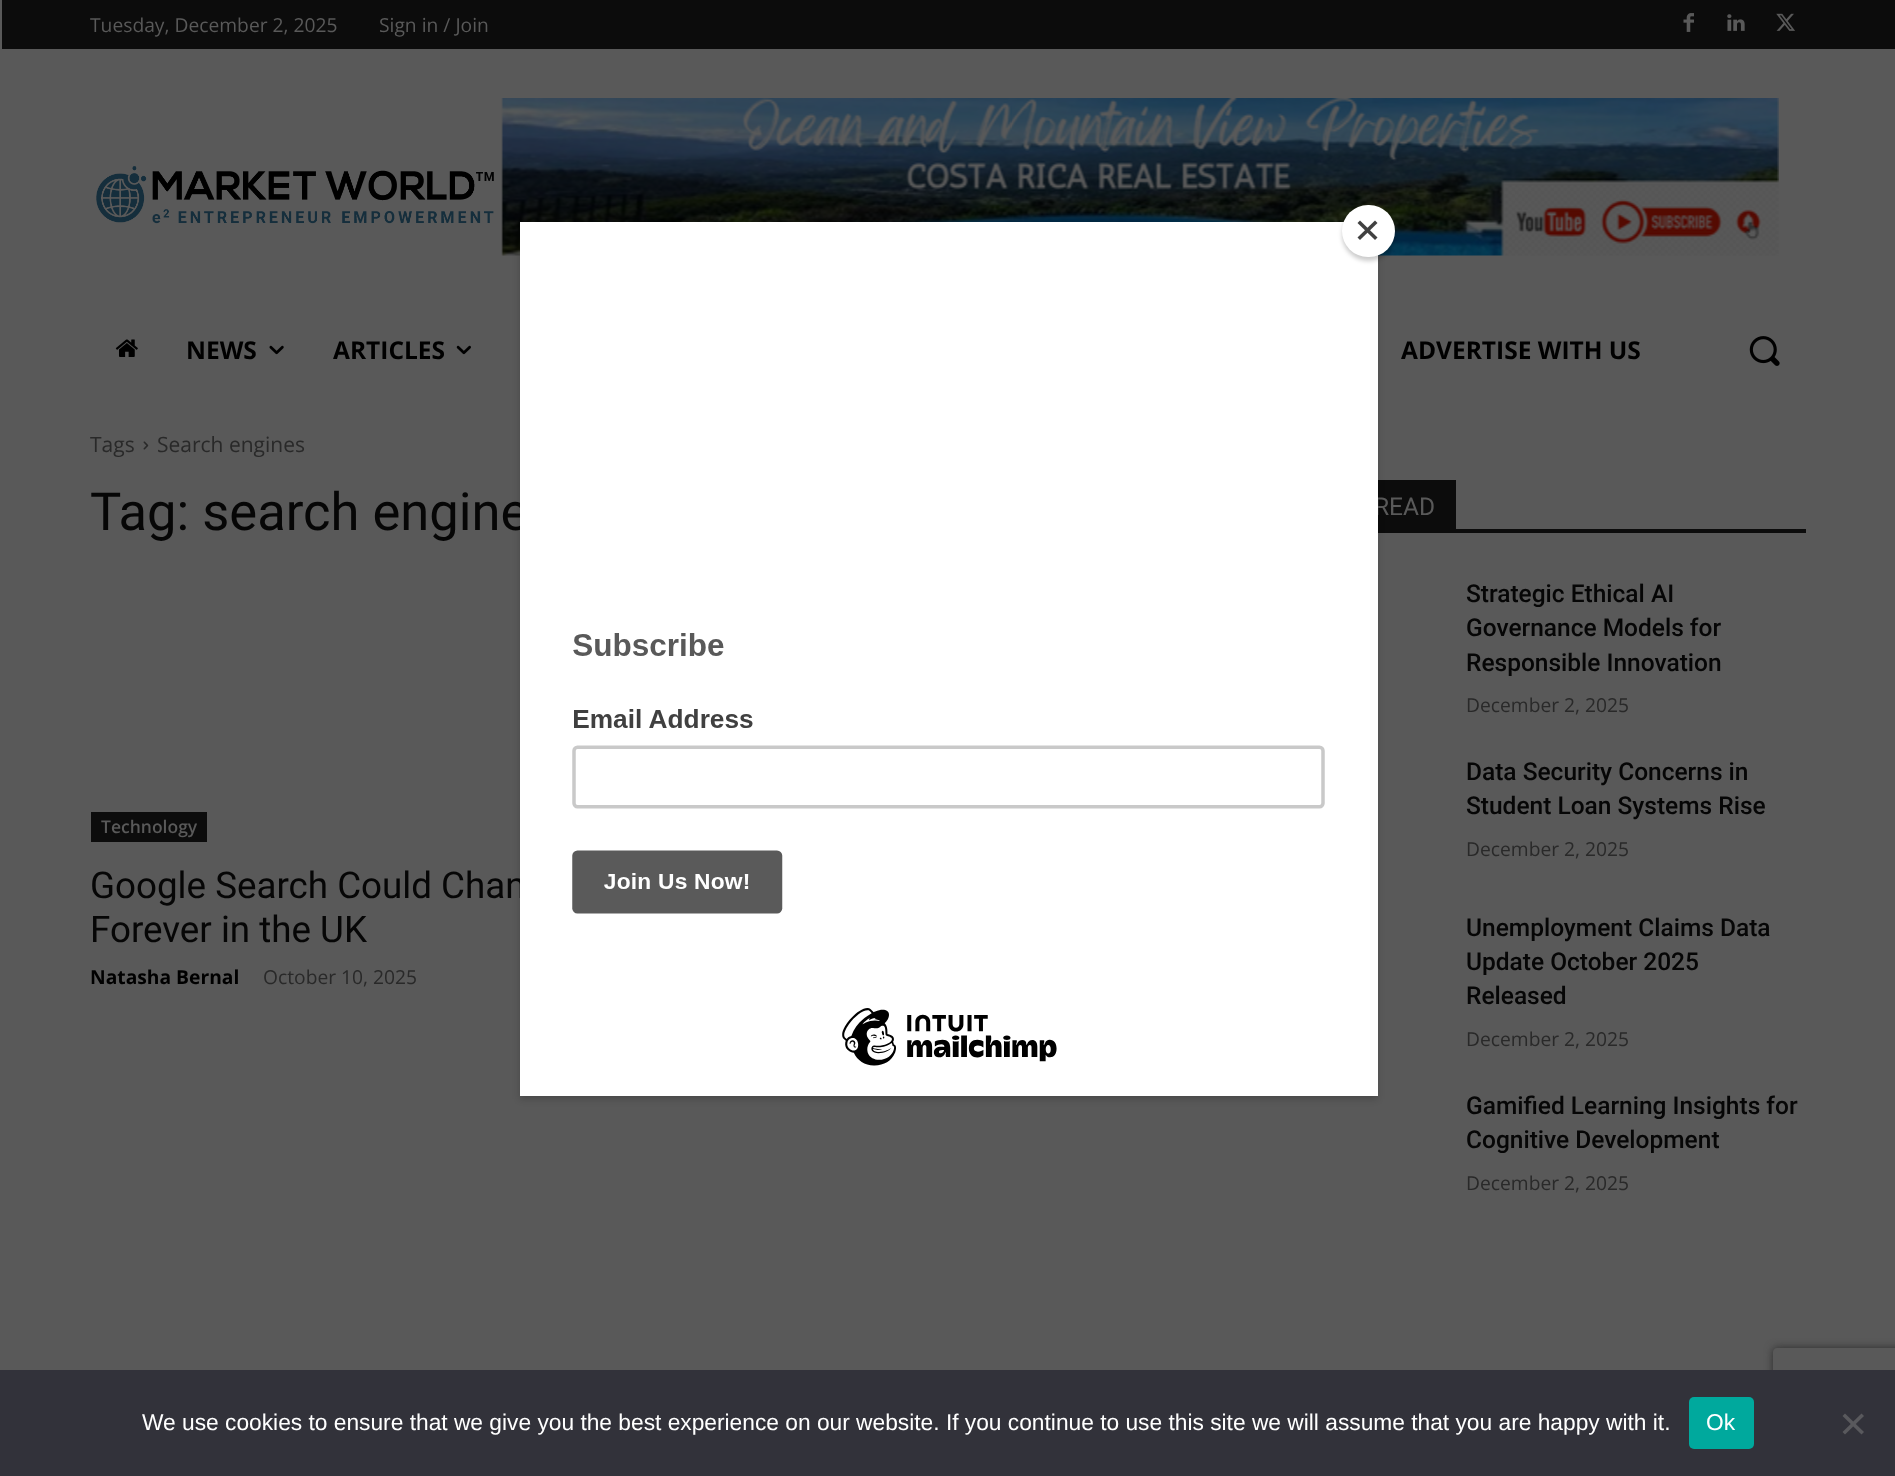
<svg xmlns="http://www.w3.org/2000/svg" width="1895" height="1476">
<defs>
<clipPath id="clip1"><path d="M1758 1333h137v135h-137zm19 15h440c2 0 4 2 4 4v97c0 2-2 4-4 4h-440c-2 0-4-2-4-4v-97c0-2 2-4 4-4z" clip-rule="evenodd"/></clipPath>
</defs>
<rect width="100%" height="100%" fill="#595959"/>
<rect x="2" width="1893" height="49" fill="#0c0c0c"/>
<text x="90" y="32" style="font-family:Open Sans;font-size:19.25px;fill:#595959">Tuesday, December 2, 2025</text>
<text x="379" y="32" style="font-family:Open Sans;font-size:19.25px;fill:#595959">Sign in / Join</text>
<image x="1683" y="13" width="11" height="19" href="media/1.png"/>
<image x="1727" y="14" width="18" height="17" href="media/2.png"/>
<image x="1776" y="13" width="19" height="18" href="media/3.png"/>
<image x="96" y="166" width="398" height="58" href="media/4.png"/>
<image x="501" y="98" width="1278" height="158" href="media/5.png"/>
<image x="115" y="339" width="23" height="18" href="media/6.png"/>
<text x="186" y="359" style="font-family:Open Sans;font-size:24.5px;font-weight:bold;fill:#000">NEWS</text>
<image x="269" y="345" width="15" height="10" href="media/7.png"/>
<text x="333" y="359" style="font-family:Open Sans;font-size:24.5px;font-weight:bold;fill:#000">ARTICLES</text>
<image x="456" y="345" width="15" height="10" href="media/8.png"/>
<text x="1401" y="359" style="font-family:Open Sans;font-size:24.5px;font-weight:bold;fill:#000">ADVERTISE WITH US</text>
<image x="1749" y="336" width="31" height="30" href="media/9.png"/>
<text x="90" y="452" style="font-family:Open Sans;font-size:21px;fill:#292929">Tags</text>
<image x="143" y="441" width="6" height="9" href="media/10.png"/>
<text x="157" y="452" style="font-family:Open Sans;font-size:21px;fill:#292929">Search engines</text>
<text x="90" y="530" style="font-family:Roboto;font-size:52.5px;fill:#060606">Tag: search engine</text>
<rect x="91" y="812" width="116" height="30" fill="#0c0c0c"/>
<text x="101" y="833" style="font-family:Open Sans;font-size:17.5px;font-weight:600;fill:#595959">Technology</text>
<text x="90" y="898" style="font-family:Roboto;font-size:36.75px;fill:#060606">Google Search Could Chan</text>
<text x="90" y="942" style="font-family:Roboto;font-size:36.75px;fill:#060606">Forever in the UK</text>
<text x="90" y="984" style="font-family:Open Sans;font-size:19.25px;font-weight:bold;fill:#000">Natasha Bernal</text>
<text x="263" y="984" style="font-family:Open Sans;font-size:19.25px;fill:#292929">October 10, 2025</text>
<rect x="1378" y="529" width="428" height="4" fill="#0c0c0c"/>
<rect x="1378" y="480" width="78" height="49" fill="#0c0c0c"/>
<text x="1374" y="515" style="font-family:Roboto;font-size:24.5px;fill:#595959">READ</text>
<text x="1466" y="602" style="font-family:Roboto;font-size:24.5px;font-weight:500;fill:#060606">Strategic Ethical AI</text>
<text x="1466" y="636" style="font-family:Roboto;font-size:24.5px;font-weight:500;fill:#060606">Governance Models for</text>
<text x="1466" y="671" style="font-family:Roboto;font-size:24.5px;font-weight:500;fill:#060606">Responsible Innovation</text>
<text x="1466" y="712" style="font-family:Open Sans;font-size:19.25px;fill:#292929">December 2, 2025</text>
<text x="1466" y="780" style="font-family:Roboto;font-size:24.5px;font-weight:500;fill:#060606">Data Security Concerns in</text>
<text x="1466" y="814" style="font-family:Roboto;font-size:24.5px;font-weight:500;fill:#060606">Student Loan Systems Rise</text>
<text x="1466" y="856" style="font-family:Open Sans;font-size:19.25px;fill:#292929">December 2, 2025</text>
<text x="1466" y="936" style="font-family:Roboto;font-size:24.5px;font-weight:500;fill:#060606">Unemployment Claims Data</text>
<text x="1466" y="970" style="font-family:Roboto;font-size:24.5px;font-weight:500;fill:#060606">Update October 2025</text>
<text x="1466" y="1004" style="font-family:Roboto;font-size:24.5px;font-weight:500;fill:#060606">Released</text>
<text x="1466" y="1046" style="font-family:Open Sans;font-size:19.25px;fill:#292929">December 2, 2025</text>
<text x="1466" y="1114" style="font-family:Roboto;font-size:24.5px;font-weight:500;fill:#060606">Gamified Learning Insights for</text>
<text x="1466" y="1148" style="font-family:Roboto;font-size:24.5px;font-weight:500;fill:#060606">Cognitive Development</text>
<text x="1466" y="1190" style="font-family:Open Sans;font-size:19.25px;fill:#292929">December 2, 2025</text>
<rect x="520" y="226" width="857" height="873" fill="#00000033" filter="blur(3.5px)"/>
<image x="520" y="222" width="858" height="874" href="media/11.png"/>
<rect x="1342" y="208" width="53" height="53" rx="26.5" fill="#00000033" filter="blur(2px)"/>
<rect x="1342" y="205" width="53" height="52" rx="26" fill="#fff"/>
<path d="M1375 220.5l2.5 2.5l-17.5 17l-2.5-2.5z" fill="#414141"/>
<path d="M1357.5 223l2.5-2.5l17.5 17l-2.5 2.5z" fill="#414141"/>
<g clip-path="url(#clip1)">
<rect x="1773" y="1348" width="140" height="105" rx="4" fill="#2d2d2d" filter="blur(4.5px)"/>
</g>
<rect y="1370" width="1895" height="106" fill="#32323a"/>
<text x="142" y="1430" style="font-family:Liberation Sans;font-size:22.75px;fill:#fff">We use cookies to ensure that we give you the best experience on our website. If you continue to use this site we will assume that you are happy with it.</text>
<rect x="1689" y="1397" width="65" height="52" rx="5" fill="#00a99d"/>
<text x="1706" y="1430" style="font-family:Liberation Sans;font-size:22.75px;fill:#fff">Ok</text>
<path d="M1861.5 1413.5l2.5 2.5l-19 18.5l-2.5-2.5z" fill="#59595d"/>
<path d="M1842.5 1416l2.5-2.5l19 18.5l-2.5 2.5z" fill="#59595d"/>
</svg>
